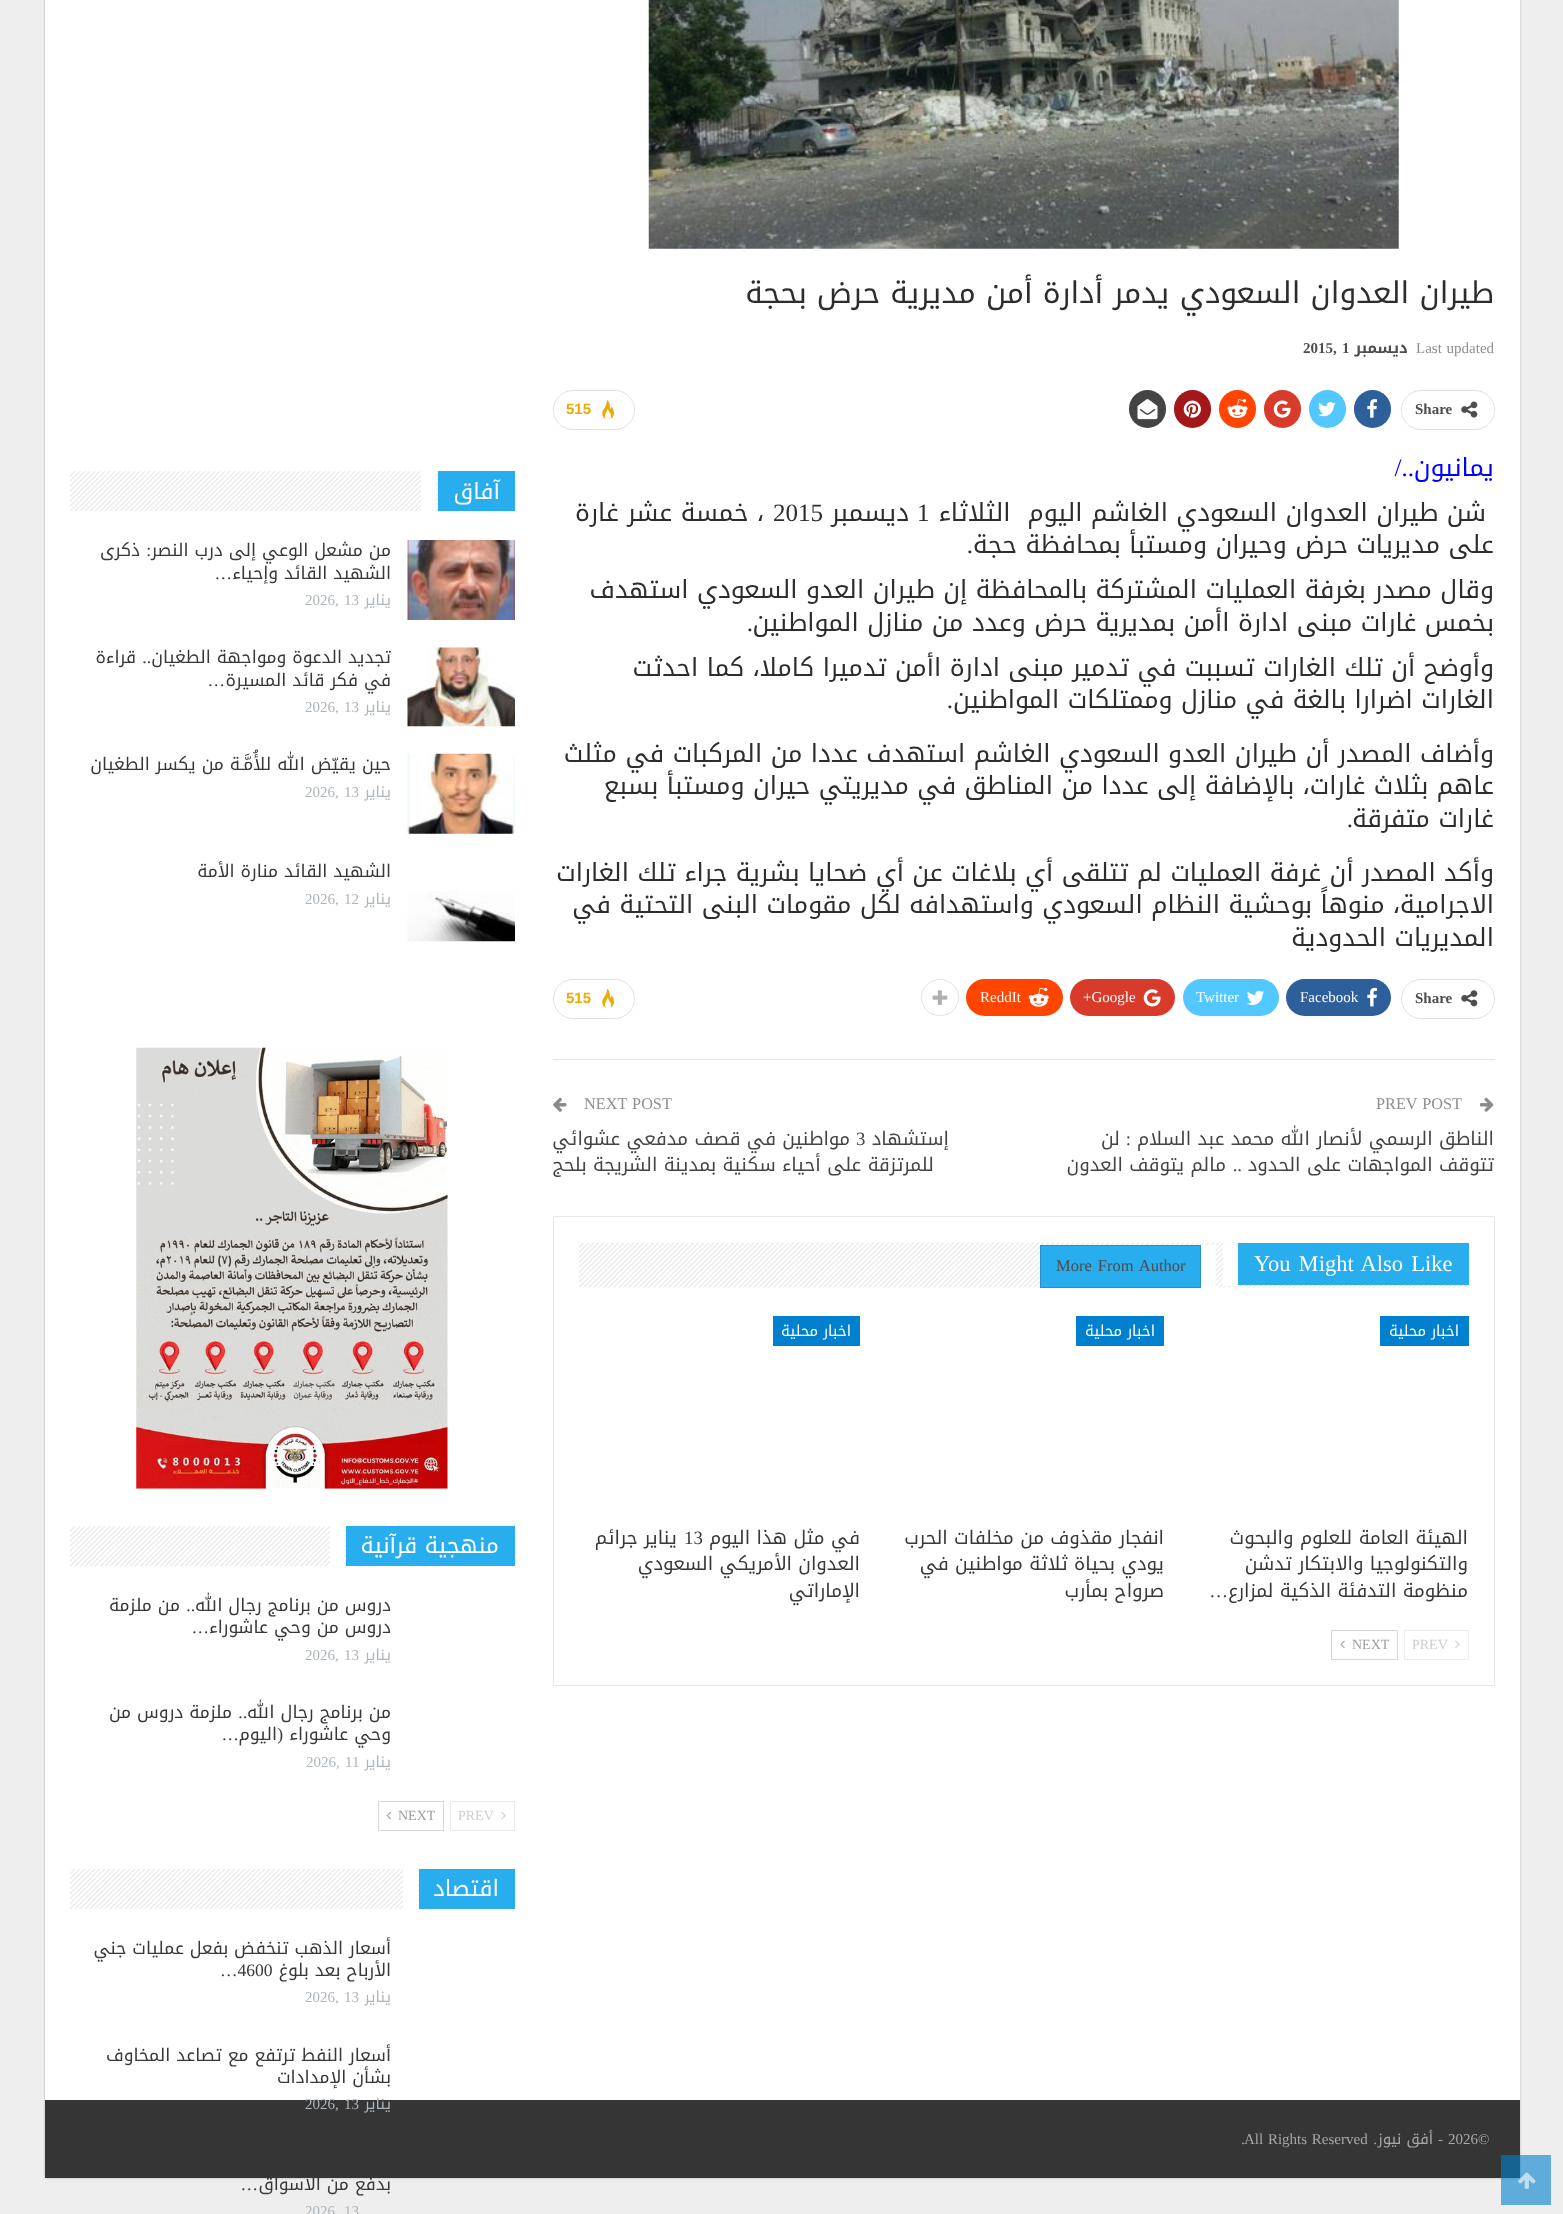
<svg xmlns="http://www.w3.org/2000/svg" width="1563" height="2214">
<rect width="100%" height="100%" fill="#eee"/>
<rect x="45" y="-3" width="1475" height="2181" fill="#00000045" filter="blur(1px)"/>
<rect x="45" y="2100" width="1475" height="78" fill="#353535"/>
<rect x="1501" y="2155" width="50" height="50" fill="#0080ce99"/>
<image x="1518" y="2172" width="18" height="17" href="media/1.png"/>
<rect x="45" width="1475" height="2100" fill="#fff"/>
<image x="648" y="0" width="751" height="249" href="media/2.png"/>
<text x="1494" y="303" style="font-family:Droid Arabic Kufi;font-size:30px;direction:rtl;fill:#2d2d2d">طيران العدوان السعودي يدمر أدارة أمن مديرية حرض بحجة</text>
<text x="1416" y="353" word-spacing="1" style="font-family:Liberation Serif;font-size:15px;fill:#8f8f8f">Last updated</text>
<text x="1408" y="353" style="font-family:Droid Arabic Kufi;font-size:15px;font-weight:bold;direction:rtl;fill:#4d4d4d">ديسمبر</text>
<text x="1342" y="353" style="font-family:Liberation Serif;font-size:15px;font-weight:bold;fill:#4d4d4d">1</text>
<text x="1303" y="353" style="font-family:Liberation Serif;font-size:15px;font-weight:bold;fill:#4d4d4d">2015,</text>
<rect x="1401.5" y="390.5" width="93" height="39" rx="19.5" fill="none" stroke="#e2e2e2"/>
<image x="1461" y="401" width="17" height="17" href="media/3.png"/>
<text x="1415" y="414" style="font-family:Liberation Serif;font-size:15px;font-weight:bold;fill:#4d4d4d">Share</text>
<rect x="1354" y="390" width="37" height="38" rx="18.5" fill="#2d5f9a"/>
<image x="1367" y="399" width="10" height="19" href="media/4.png"/>
<rect x="1309" y="390" width="37" height="38" rx="18.5" fill="#53c7ff"/>
<image x="1318" y="402" width="18" height="15" href="media/5.png"/>
<rect x="1264" y="390" width="37" height="38" rx="18.5" fill="#d93b2b"/>
<image x="1273" y="400" width="18" height="18" href="media/6.png"/>
<rect x="1219" y="390" width="37" height="38" rx="18.5" fill="#ff4500"/>
<image x="1227" y="399" width="21" height="19" href="media/7.png"/>
<rect x="1174" y="390" width="37" height="38" rx="18.5" fill="#a41719"/>
<image x="1183" y="400" width="18" height="18" href="media/8.png"/>
<rect x="1129" y="390" width="37" height="38" rx="18.5" fill="#444"/>
<image x="1137" y="399" width="21" height="21" href="media/9.png"/>
<rect x="553.5" y="390.5" width="81" height="39" rx="19.5" fill="none" stroke="#e2e2e2"/>
<image x="602" y="400" width="12" height="19" href="media/10.png"/>
<text x="566" y="414" style="font-family:Liberation Sans;font-size:15px;font-weight:bold;fill:#edaa02">515</text>
<text x="1494" y="476" style="font-family:Droid Arabic Kufi;font-size:25px;direction:rtl;fill:#00f">يمانيون</text>
<text x="1414" y="476" style="font-family:Liberation Serif;font-size:25px;direction:rtl;fill:#00f">../</text>
<text x="1486" y="521" style="font-family:Droid Arabic Kufi;font-size:25px;direction:rtl;fill:#2d2d2d" xml:space="preserve">شن طيران العدوان السعودي الغاشم اليوم  الثلاثاء</text>
<text x="917" y="521" style="font-family:Liberation Serif;font-size:25px;fill:#2d2d2d">1</text>
<text x="909" y="521" style="font-family:Droid Arabic Kufi;font-size:25px;direction:rtl;fill:#2d2d2d">ديسمبر</text>
<text x="773" y="521" style="font-family:Liberation Serif;font-size:25px;fill:#2d2d2d">2015</text>
<text x="764" y="521" style="font-family:Droid Arabic Kufi;font-size:25px;direction:rtl;fill:#2d2d2d">، خمسة عشر غارة</text>
<text x="1494" y="553" style="font-family:Droid Arabic Kufi;font-size:25px;direction:rtl;fill:#2d2d2d">على مديريات حرض وحيران ومستبأ بمحافظة حجة</text>
<text x="973" y="553" style="font-family:Liberation Serif;font-size:25px;direction:rtl;fill:#2d2d2d">.</text>
<text x="1494" y="598" style="font-family:Droid Arabic Kufi;font-size:25px;direction:rtl;fill:#2d2d2d">وقال مصدر بغرفة العمليات المشتركة بالمحافظة إن طيران العدو السعودي استهدف</text>
<text x="1494" y="631" style="font-family:Droid Arabic Kufi;font-size:25px;direction:rtl;fill:#2d2d2d">بخمس غارات مبنى ادارة اأمن بمديرية حرض وعدد من منازل المواطنين</text>
<text x="753" y="631" style="font-family:Liberation Serif;font-size:25px;direction:rtl;fill:#2d2d2d">.</text>
<text x="1494" y="676" style="font-family:Droid Arabic Kufi;font-size:25px;direction:rtl;fill:#2d2d2d">وأوضح أن تلك الغارات تسببت في تدمير مبنى ادارة اأمن تدميرا كاملا، كما احدثت</text>
<text x="1494" y="708" style="font-family:Droid Arabic Kufi;font-size:25px;direction:rtl;fill:#2d2d2d">الغارات اضرارا بالغة في منازل وممتلكات المواطنين</text>
<text x="953" y="708" style="font-family:Liberation Serif;font-size:25px;direction:rtl;fill:#2d2d2d">.</text>
<text x="1494" y="762" style="font-family:Droid Arabic Kufi;font-size:25px;direction:rtl;fill:#2d2d2d">وأضاف المصدر أن طيران العدو السعودي الغاشم استهدف عددا من المركبات في مثلث</text>
<text x="1494" y="794" style="font-family:Droid Arabic Kufi;font-size:25px;direction:rtl;fill:#2d2d2d">عاهم بثلاث غارات، بالإضافة إلى عددا من المناطق في مديريتي حيران ومستبأ بسبع</text>
<text x="1494" y="827" style="font-family:Droid Arabic Kufi;font-size:25px;direction:rtl;fill:#2d2d2d">غارات متفرقة</text>
<text x="1353" y="827" style="font-family:Liberation Serif;font-size:25px;direction:rtl;fill:#2d2d2d">.</text>
<text x="1494" y="881" style="font-family:Droid Arabic Kufi;font-size:25px;direction:rtl;fill:#2d2d2d">وأكد المصدر أن غرفة العمليات لم تتلقى أي بلاغات عن أي ضحايا بشرية جراء تلك الغارات</text>
<text x="1494" y="913" style="font-family:Droid Arabic Kufi;font-size:25px;direction:rtl;fill:#2d2d2d">اﻻجرامية، منوهاً بوحشية النظام السعودي واستهدافه لكل مقومات البنى التحتية في</text>
<text x="1494" y="946" style="font-family:Droid Arabic Kufi;font-size:25px;direction:rtl;fill:#2d2d2d">المديريات الحدودية</text>
<rect x="1401.5" y="979.5" width="93" height="39" rx="19.5" fill="none" stroke="#e2e2e2"/>
<image x="1461" y="990" width="17" height="17" href="media/11.png"/>
<text x="1415" y="1003" style="font-family:Liberation Serif;font-size:15px;font-weight:bold;fill:#4d4d4d">Share</text>
<rect x="1286" y="979" width="105" height="37" rx="18.5" fill="#2d5f9a"/>
<image x="1367" y="987" width="10" height="20" href="media/12.png"/>
<text x="1300" y="1002" style="font-family:Liberation Serif;font-size:15px;fill:#fff">Facebook</text>
<rect x="1183" y="979" width="96" height="37" rx="18.5" fill="#53c7ff"/>
<image x="1247" y="990" width="18" height="15" href="media/13.png"/>
<text x="1196" y="1002" style="font-family:Liberation Serif;font-size:15px;fill:#fff">Twitter</text>
<rect x="1070" y="979" width="105" height="37" rx="18.5" fill="#d93b2b"/>
<image x="1143" y="989" width="18" height="18" href="media/14.png"/>
<text x="1083" y="1002" style="font-family:Liberation Serif;font-size:15px;fill:#fff">+Google</text>
<rect x="966" y="979" width="97" height="37" rx="18.5" fill="#ff4500"/>
<image x="1028" y="987" width="21" height="20" href="media/15.png"/>
<text x="980" y="1002" style="font-family:Liberation Serif;font-size:15px;fill:#fff">ReddIt</text>
<rect x="921.5" y="979.5" width="37" height="36" rx="18" fill="none" stroke="#e2e2e2"/>
<image x="932" y="990" width="16" height="15" href="media/16.png"/>
<rect x="553.5" y="979.5" width="81" height="39" rx="19.5" fill="none" stroke="#e2e2e2"/>
<image x="602" y="988" width="12" height="20" href="media/17.png"/>
<text x="566" y="1003" style="font-family:Liberation Sans;font-size:15px;font-weight:bold;fill:#edaa02">515</text>
<rect x="553" y="1059" width="942" height="1" fill="#e8e8e8"/>
<image x="1480" y="1097" width="14" height="15" href="media/18.png"/>
<text x="1376" y="1109" word-spacing="1" style="font-family:Liberation Serif;font-size:16.25px;fill:#8f8f8f">PREV POST</text>
<text x="1494" y="1145" style="font-family:Droid Arabic Kufi;font-size:18.75px;direction:rtl;fill:#444">الناطق الرسمي لأنصار الله محمد عبد السلام</text>
<text x="1131" y="1145" style="font-family:Liberation Serif;font-size:18.75px;direction:rtl;fill:#444">:</text>
<text x="1120" y="1145" style="font-family:Droid Arabic Kufi;font-size:18.75px;direction:rtl;fill:#444">لن</text>
<text x="1494" y="1171" style="font-family:Droid Arabic Kufi;font-size:18.75px;direction:rtl;fill:#444">تتوقف المواجهات على الحدود</text>
<text x="1242" y="1171" style="font-family:Liberation Serif;font-size:18.75px;direction:rtl;fill:#444">..</text>
<text x="1226" y="1171" style="font-family:Droid Arabic Kufi;font-size:18.75px;direction:rtl;fill:#444">مالم يتوقف العدون</text>
<text x="584" y="1109" word-spacing="1" style="font-family:Liberation Serif;font-size:16.25px;fill:#8f8f8f">NEXT POST</text>
<image x="553" y="1097" width="14" height="15" href="media/19.png"/>
<text x="949" y="1145" style="font-family:Droid Arabic Kufi;font-size:18.75px;direction:rtl;fill:#444">إستشهاد</text>
<text x="856" y="1145" style="font-family:Liberation Serif;font-size:18.75px;fill:#444">3</text>
<text x="850" y="1145" style="font-family:Droid Arabic Kufi;font-size:18.75px;direction:rtl;fill:#444">مواطنين في قصف مدفعي عشوائي</text>
<text x="934" y="1171" style="font-family:Droid Arabic Kufi;font-size:18.75px;direction:rtl;fill:#444">للمرتزقة على أحياء سكنية بمدينة الشريجة بلحج</text>
<rect x="553.5" y="1216.5" width="941" height="469" fill="none" stroke="#e8e8e8"/>
<image x="579" y="1242" width="890" height="46" href="media/20.png"/>
<rect x="1238" y="1243" width="231" height="42" fill="#28adee"/>
<text x="1254" y="1271" word-spacing="2.5" style="font-family:Liberation Serif;font-size:22.5px;fill:#fff">You Might Also Like</text>
<rect x="1223" y="1243" width="15" height="43" fill="#fff"/>
<rect x="1040.5" y="1245.5" width="160" height="42" fill="#28adee" stroke="#2293ca"/>
<rect x="1201" y="1245" width="15" height="43" fill="#fff"/>
<text x="1056" y="1271" word-spacing="2" style="font-family:Liberation Serif;font-size:16.5px;fill:#4d4d4d">More From Author</text>
<rect x="1380" y="1316" width="89" height="30" fill="#0080ce"/>
<text x="1459" y="1336" style="font-family:Droid Arabic Kufi;font-size:15px;direction:rtl;fill:#fff">اخبار محلية</text>
<text x="1468" y="1544" style="font-family:Droid Arabic Kufi;font-size:18.75px;direction:rtl;fill:#383838">الهيئة العامة للعلوم والبحوث</text>
<text x="1468" y="1570" style="font-family:Droid Arabic Kufi;font-size:18.75px;direction:rtl;fill:#383838">والتكنولوجيا والابتكار تدشن</text>
<text x="1468" y="1597" style="font-family:Droid Arabic Kufi;font-size:18.75px;direction:rtl;fill:#383838">منظومة التدفئة الذكية لمزارع</text>
<text x="1228" y="1597" style="font-family:Liberation Serif;font-size:18.75px;direction:rtl;fill:#383838">…</text>
<rect x="1076" y="1316" width="88" height="30" fill="#0080ce"/>
<text x="1155" y="1336" style="font-family:Droid Arabic Kufi;font-size:15px;direction:rtl;fill:#fff">اخبار محلية</text>
<text x="1164" y="1544" style="font-family:Droid Arabic Kufi;font-size:18.75px;direction:rtl;fill:#383838">انفجار مقذوف من مخلفات الحرب</text>
<text x="1164" y="1570" style="font-family:Droid Arabic Kufi;font-size:18.75px;direction:rtl;fill:#383838">يودي بحياة ثلاثة مواطنين في</text>
<text x="1164" y="1597" style="font-family:Droid Arabic Kufi;font-size:18.75px;direction:rtl;fill:#383838">صرواح بمأرب</text>
<rect x="773" y="1316" width="87" height="30" fill="#0080ce"/>
<text x="851" y="1336" style="font-family:Droid Arabic Kufi;font-size:15px;direction:rtl;fill:#fff">اخبار محلية</text>
<text x="860" y="1544" style="font-family:Droid Arabic Kufi;font-size:18.75px;direction:rtl;fill:#383838">في مثل هذا اليوم</text>
<text x="684" y="1544" style="font-family:Liberation Serif;font-size:18.75px;fill:#383838">13</text>
<text x="677" y="1544" style="font-family:Droid Arabic Kufi;font-size:18.75px;direction:rtl;fill:#383838">يناير جرائم</text>
<text x="860" y="1570" style="font-family:Droid Arabic Kufi;font-size:18.75px;direction:rtl;fill:#383838">العدوان الأمريكي السعودي</text>
<text x="860" y="1597" style="font-family:Droid Arabic Kufi;font-size:18.75px;direction:rtl;fill:#383838">الإماراتي</text>
<rect x="1404.5" y="1630.5" width="64" height="29" fill="none" stroke="#ececec"/>
<image x="1455" y="1640" width="5" height="8" href="media/21.png"/>
<text x="1412" y="1649" style="font-family:Liberation Serif;font-size:14px;fill:#cfcfcf">PREV</text>
<rect x="1331.5" y="1630.5" width="66" height="29" fill="none" stroke="#d8d8d8"/>
<text x="1352" y="1649" style="font-family:Liberation Serif;font-size:14px;fill:#9e9e9e">NEXT</text>
<image x="1340" y="1640" width="5" height="9" href="media/22.png"/>
<rect x="438" y="471" width="77" height="40" fill="#28adee"/>
<text x="500" y="499" style="font-family:Droid Arabic Kufi;font-size:22.5px;direction:rtl;fill:#fff">آفاق</text>
<image x="70" y="471" width="368" height="40" href="media/23.png"/>
<rect x="421" y="471" width="15" height="40" fill="#fff"/>
<image x="407" y="540" width="108" height="80" href="media/24.png"/>
<text x="391" y="556" style="font-family:Droid Arabic Kufi;font-size:17.5px;direction:rtl;fill:#383838">من مشعل الوعي إلى درب النصر</text>
<text x="151" y="556" style="font-family:Liberation Serif;font-size:17.5px;direction:rtl;fill:#383838">:</text>
<text x="140" y="556" style="font-family:Droid Arabic Kufi;font-size:17.5px;direction:rtl;fill:#383838">ذكرى</text>
<text x="391" y="579" style="font-family:Droid Arabic Kufi;font-size:17.5px;direction:rtl;fill:#383838">الشهيد القائد وإحياء</text>
<text x="232" y="579" style="font-family:Liberation Serif;font-size:17.5px;direction:rtl;fill:#383838">…</text>
<text x="391" y="605" style="font-family:Droid Arabic Kufi;font-size:15px;direction:rtl;fill:#adb5bd">يناير</text>
<text x="344" y="605" style="font-family:Liberation Serif;font-size:15px;fill:#adb5bd">13</text>
<text x="305" y="605" style="font-family:Liberation Serif;font-size:15px;fill:#adb5bd">2026,</text>
<image x="407" y="647" width="108" height="80" href="media/25.png"/>
<text x="391" y="663" style="font-family:Droid Arabic Kufi;font-size:17.5px;direction:rtl;fill:#383838">تجديد الدعوة ومواجهة الطغيان</text>
<text x="151" y="663" style="font-family:Liberation Serif;font-size:17.5px;direction:rtl;fill:#383838">..</text>
<text x="136" y="663" style="font-family:Droid Arabic Kufi;font-size:17.5px;direction:rtl;fill:#383838">قراءة</text>
<text x="391" y="686" style="font-family:Droid Arabic Kufi;font-size:17.5px;direction:rtl;fill:#383838">في فكر قائد المسيرة</text>
<text x="225" y="686" style="font-family:Liberation Serif;font-size:17.5px;direction:rtl;fill:#383838">…</text>
<text x="391" y="712" style="font-family:Droid Arabic Kufi;font-size:15px;direction:rtl;fill:#adb5bd">يناير</text>
<text x="344" y="712" style="font-family:Liberation Serif;font-size:15px;fill:#adb5bd">13</text>
<text x="305" y="712" style="font-family:Liberation Serif;font-size:15px;fill:#adb5bd">2026,</text>
<image x="407" y="753" width="108" height="81" href="media/26.png"/>
<text x="391" y="770" style="font-family:Droid Arabic Kufi;font-size:17.5px;direction:rtl;fill:#383838">حين يقيّض الله للأُمَّـة من يكسر الطغيان</text>
<text x="391" y="797" style="font-family:Droid Arabic Kufi;font-size:15px;direction:rtl;fill:#adb5bd">يناير</text>
<text x="344" y="797" style="font-family:Liberation Serif;font-size:15px;fill:#adb5bd">13</text>
<text x="305" y="797" style="font-family:Liberation Serif;font-size:15px;fill:#adb5bd">2026,</text>
<text x="391" y="877" style="font-family:Droid Arabic Kufi;font-size:17.5px;direction:rtl;fill:#383838">الشهيد القائد منارة الأمة</text>
<image x="407" y="891" width="108" height="51" href="media/27.png"/>
<text x="391" y="904" style="font-family:Droid Arabic Kufi;font-size:15px;direction:rtl;fill:#adb5bd">يناير</text>
<text x="344" y="904" style="font-family:Liberation Serif;font-size:15px;fill:#adb5bd">12</text>
<text x="305" y="904" style="font-family:Liberation Serif;font-size:15px;fill:#adb5bd">2026,</text>
<image x="136" y="1047" width="312" height="442" href="media/28.png"/>
<rect x="346" y="1526" width="169" height="40" fill="#28adee"/>
<text x="499" y="1553" style="font-family:Droid Arabic Kufi;font-size:22.5px;direction:rtl;fill:#fff">منهجية قرآنية</text>
<image x="70" y="1526" width="276" height="40" href="media/29.png"/>
<rect x="330" y="1526" width="15" height="40" fill="#fff"/>
<text x="391" y="1611" style="font-family:Droid Arabic Kufi;font-size:17.5px;direction:rtl;fill:#383838">دروس من برنامج رجال الله</text>
<text x="195" y="1611" style="font-family:Liberation Serif;font-size:17.5px;direction:rtl;fill:#383838">..</text>
<text x="180" y="1611" style="font-family:Droid Arabic Kufi;font-size:17.5px;direction:rtl;fill:#383838">من ملزمة</text>
<text x="391" y="1633" style="font-family:Droid Arabic Kufi;font-size:17.5px;direction:rtl;fill:#383838">دروس من وحي عاشوراء</text>
<text x="209" y="1633" style="font-family:Liberation Serif;font-size:17.5px;direction:rtl;fill:#383838">…</text>
<text x="391" y="1660" style="font-family:Droid Arabic Kufi;font-size:15px;direction:rtl;fill:#adb5bd">يناير</text>
<text x="344" y="1660" style="font-family:Liberation Serif;font-size:15px;fill:#adb5bd">13</text>
<text x="305" y="1660" style="font-family:Liberation Serif;font-size:15px;fill:#adb5bd">2026,</text>
<text x="391" y="1718" style="font-family:Droid Arabic Kufi;font-size:17.5px;direction:rtl;fill:#383838">من برنامج رجال الله</text>
<text x="247" y="1718" style="font-family:Liberation Serif;font-size:17.5px;direction:rtl;fill:#383838">..</text>
<text x="232" y="1718" style="font-family:Droid Arabic Kufi;font-size:17.5px;direction:rtl;fill:#383838">ملزمة دروس من</text>
<text x="391" y="1740" style="font-family:Droid Arabic Kufi;font-size:17.5px;direction:rtl;fill:#383838">وحي عاشوراء</text>
<text x="283" y="1740" style="font-family:Liberation Serif;font-size:17.5px;direction:rtl;fill:#383838">(</text>
<text x="277" y="1740" style="font-family:Droid Arabic Kufi;font-size:17.5px;direction:rtl;fill:#383838">اليوم</text>
<text x="239" y="1740" style="font-family:Liberation Serif;font-size:17.5px;direction:rtl;fill:#383838">…</text>
<text x="391" y="1767" style="font-family:Droid Arabic Kufi;font-size:15px;direction:rtl;fill:#adb5bd">يناير</text>
<text x="345" y="1767" style="font-family:Liberation Serif;font-size:15px;fill:#adb5bd">11</text>
<text x="306" y="1767" style="font-family:Liberation Serif;font-size:15px;fill:#adb5bd">2026,</text>
<rect x="450.5" y="1801.5" width="64" height="29" fill="none" stroke="#ececec"/>
<image x="501" y="1812" width="5" height="8" href="media/30.png"/>
<text x="458" y="1820" style="font-family:Liberation Serif;font-size:14px;fill:#cfcfcf">PREV</text>
<rect x="378.5" y="1801.5" width="65" height="29" fill="none" stroke="#d8d8d8"/>
<text x="398" y="1820" style="font-family:Liberation Serif;font-size:14px;fill:#9e9e9e">NEXT</text>
<image x="386" y="1811" width="5" height="9" href="media/31.png"/>
<rect x="419" y="1869" width="96" height="40" fill="#28adee"/>
<text x="499" y="1896" style="font-family:Droid Arabic Kufi;font-size:22.5px;direction:rtl;fill:#fff">اقتصاد</text>
<image x="70" y="1869" width="349" height="40" href="media/32.png"/>
<rect x="403" y="1869" width="15" height="40" fill="#fff"/>
<text x="391" y="1954" style="font-family:Droid Arabic Kufi;font-size:17.5px;direction:rtl;fill:#383838">أسعار الذهب تنخفض بفعل عمليات جني</text>
<text x="391" y="1976" style="font-family:Droid Arabic Kufi;font-size:17.5px;direction:rtl;fill:#383838">الأرباح بعد بلوغ</text>
<text x="220" y="1976" style="font-family:Liberation Serif;font-size:17.5px;fill:#383838">…4600</text>
<text x="391" y="2002" style="font-family:Droid Arabic Kufi;font-size:15px;direction:rtl;fill:#adb5bd">يناير</text>
<text x="344" y="2002" style="font-family:Liberation Serif;font-size:15px;fill:#adb5bd">13</text>
<text x="305" y="2002" style="font-family:Liberation Serif;font-size:15px;fill:#adb5bd">2026,</text>
<text x="391" y="2061" style="font-family:Droid Arabic Kufi;font-size:17.5px;direction:rtl;fill:#383838">أسعار النفط ترتفع مع تصاعد المخاوف</text>
<text x="391" y="2083" style="font-family:Droid Arabic Kufi;font-size:17.5px;direction:rtl;fill:#383838">بشأن الإمدادات</text>
<text x="391" y="2109" style="font-family:Droid Arabic Kufi;font-size:15px;direction:rtl;fill:#adb5bd">يناير</text>
<text x="344" y="2109" style="font-family:Liberation Serif;font-size:15px;fill:#adb5bd">13</text>
<text x="305" y="2109" style="font-family:Liberation Serif;font-size:15px;fill:#adb5bd">2026,</text>
<text x="391" y="2190" style="font-family:Droid Arabic Kufi;font-size:17.5px;direction:rtl;fill:#383838">بدفع من الأسواق</text>
<text x="258" y="2190" style="font-family:Liberation Serif;font-size:17.5px;direction:rtl;fill:#383838">…</text>
<text x="344" y="2216" style="font-family:Liberation Serif;font-size:15px;fill:#adb5bd">13</text>
<text x="305" y="2216" style="font-family:Liberation Serif;font-size:15px;fill:#adb5bd">2026</text>
<text x="1448" y="2144" style="font-family:Liberation Serif;font-size:15px;fill:#a8a8a8">2026©</text>
<text x="1443" y="2144" style="font-family:Liberation Serif;font-size:15px;direction:rtl;fill:#a8a8a8">-</text>
<text x="1377" y="2144" style="font-family:Liberation Serif;font-size:15px;direction:rtl;fill:#a8a8a8">.</text>
<text x="1433" y="2144" style="font-family:Droid Arabic Kufi;font-size:15px;direction:rtl;fill:#a8a8a8">أفق نيوز</text>
<text x="1244" y="2144" word-spacing="1" style="font-family:Liberation Serif;font-size:15px;fill:#a8a8a8">All Rights Reserved</text>
<text x="1241" y="2144" style="font-family:Liberation Serif;font-size:15px;fill:#a8a8a8">.</text>
</svg>
